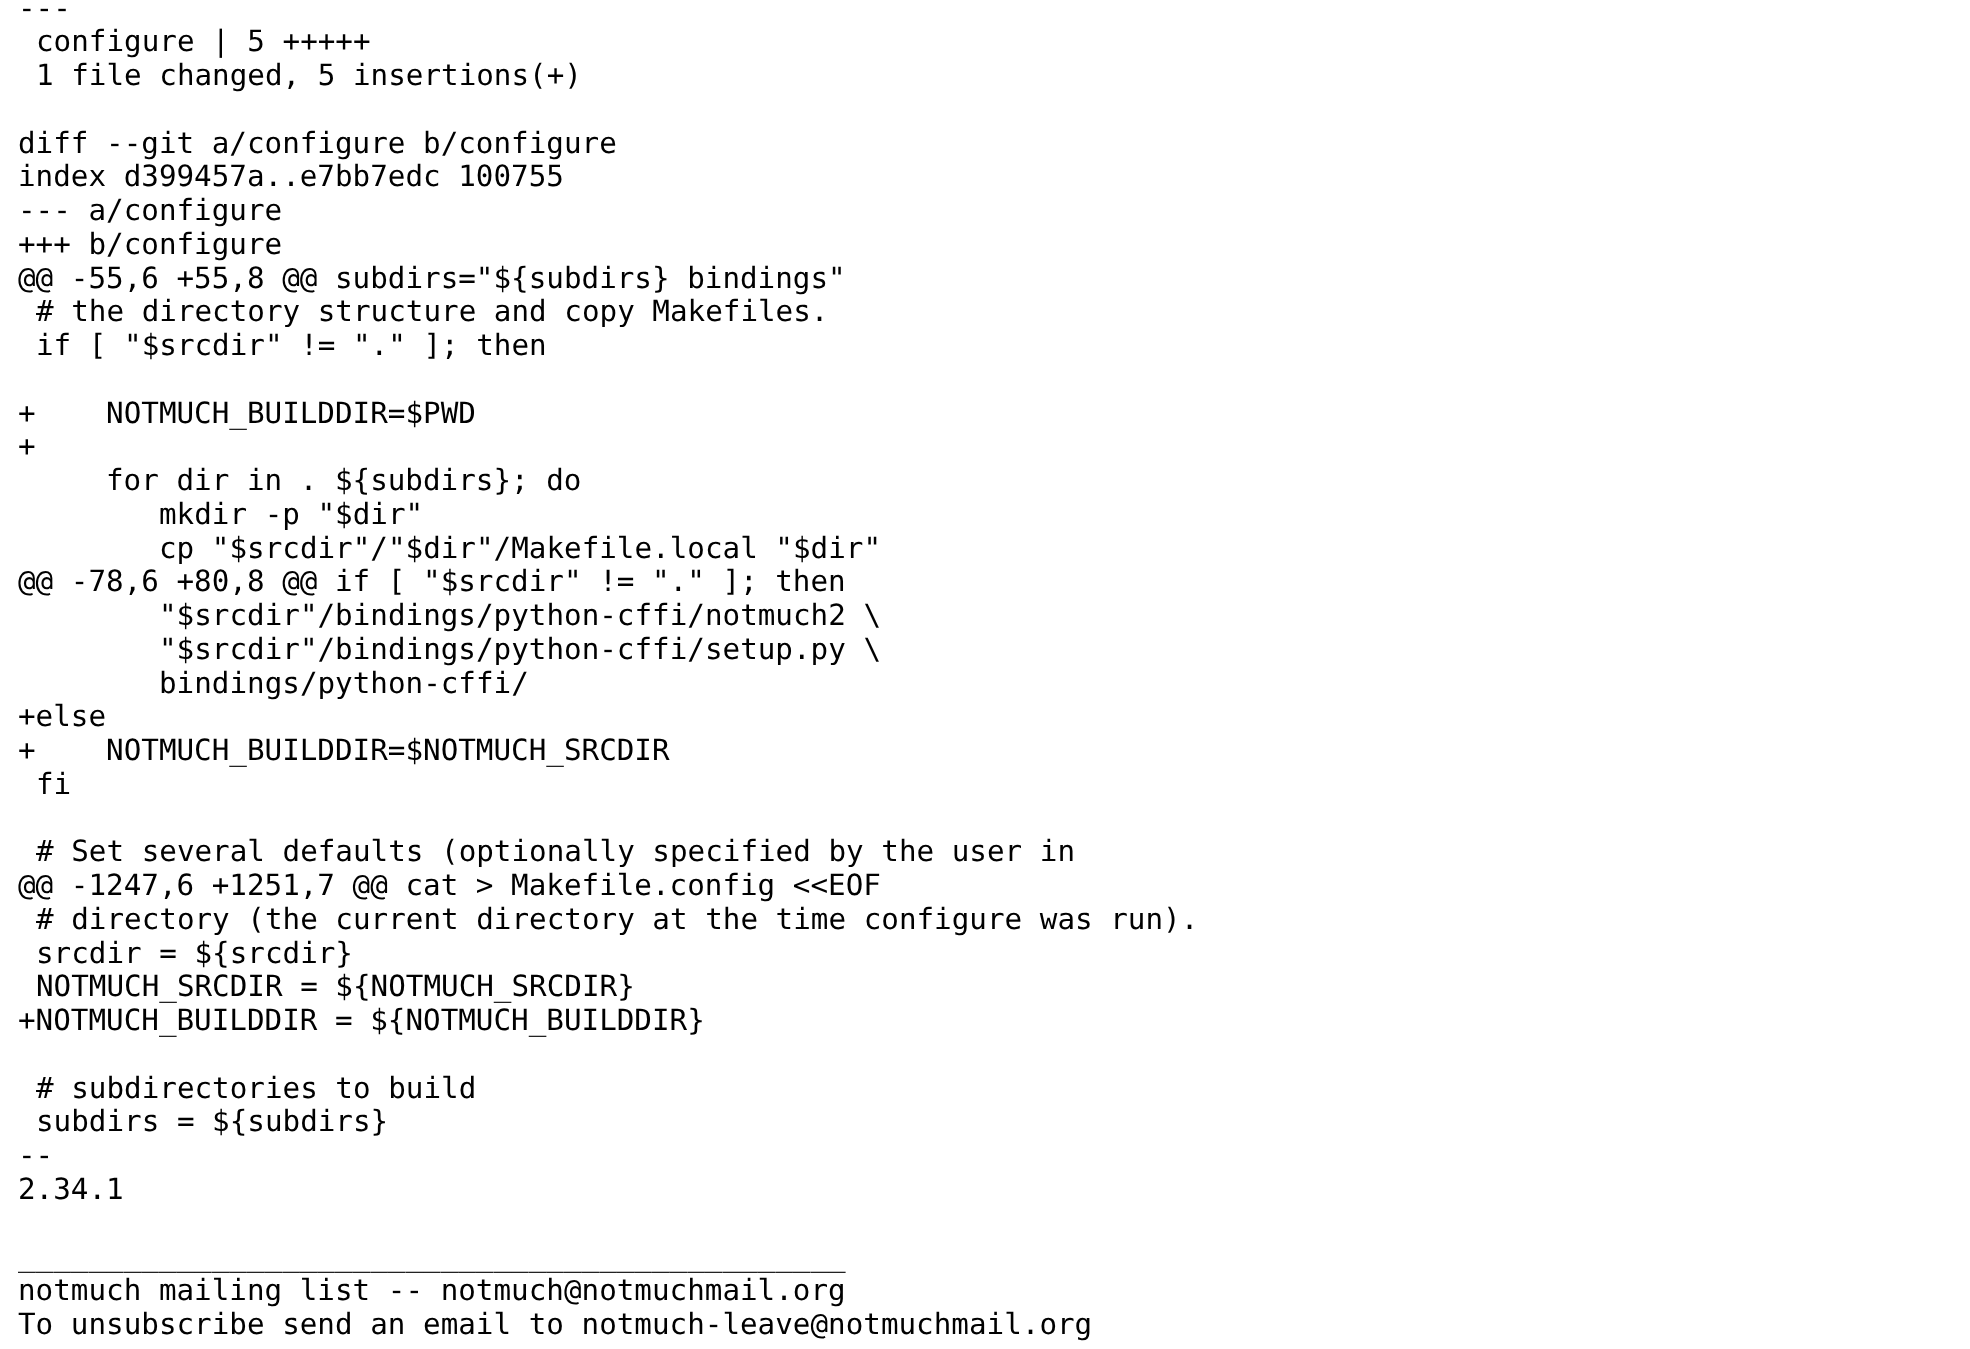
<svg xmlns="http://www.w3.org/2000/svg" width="1970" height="1349">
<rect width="100%" height="100%" fill="#fff"/>
<text x="18" y="18" style="font-family:DejaVu Sans Mono;font-size:29.25px;fill:#000">---</text>
<text x="36" y="51" style="font-family:DejaVu Sans Mono;font-size:29.25px;fill:#000">configure | 5 +++++</text>
<text x="36" y="85" style="font-family:DejaVu Sans Mono;font-size:29.25px;fill:#000">1 file changed, 5 insertions(+)</text>
<text x="18" y="153" style="font-family:DejaVu Sans Mono;font-size:29.25px;fill:#000">diff --git a/configure b/configure</text>
<text x="18" y="186" style="font-family:DejaVu Sans Mono;font-size:29.25px;fill:#000">index d399457a..e7bb7edc 100755</text>
<text x="18" y="220" style="font-family:DejaVu Sans Mono;font-size:29.25px;fill:#000">--- a/configure</text>
<text x="18" y="254" style="font-family:DejaVu Sans Mono;font-size:29.25px;fill:#000">+++ b/configure</text>
<text x="18" y="288" style="font-family:DejaVu Sans Mono;font-size:29.25px;fill:#000">@@ -55,6 +55,8 @@ subdirs="${subdirs} bindings"</text>
<text x="36" y="321" style="font-family:DejaVu Sans Mono;font-size:29.25px;fill:#000"># the directory structure and copy Makefiles.</text>
<text x="36" y="355" style="font-family:DejaVu Sans Mono;font-size:29.25px;fill:#000">if [ "$srcdir" != "." ]; then</text>
<text x="18" y="423" style="font-family:DejaVu Sans Mono;font-size:29.25px;fill:#000" xml:space="preserve">+    NOTMUCH_BUILDDIR=$PWD</text>
<text x="18" y="456" style="font-family:DejaVu Sans Mono;font-size:29.25px;fill:#000">+</text>
<text x="106" y="490" style="font-family:DejaVu Sans Mono;font-size:29.25px;fill:#000">for dir in . ${subdirs}; do</text>
<text x="159" y="524" style="font-family:DejaVu Sans Mono;font-size:29.25px;fill:#000">mkdir -p "$dir"</text>
<text x="159" y="558" style="font-family:DejaVu Sans Mono;font-size:29.25px;fill:#000">cp "$srcdir"/"$dir"/Makefile.local "$dir"</text>
<text x="18" y="591" style="font-family:DejaVu Sans Mono;font-size:29.25px;fill:#000">@@ -78,6 +80,8 @@ if [ "$srcdir" != "." ]; then</text>
<text x="159" y="625" style="font-family:DejaVu Sans Mono;font-size:29.25px;fill:#000">"$srcdir"/bindings/python-cffi/notmuch2 \</text>
<text x="159" y="659" style="font-family:DejaVu Sans Mono;font-size:29.25px;fill:#000">"$srcdir"/bindings/python-cffi/setup.py \</text>
<text x="159" y="693" style="font-family:DejaVu Sans Mono;font-size:29.25px;fill:#000">bindings/python-cffi/</text>
<text x="18" y="726" style="font-family:DejaVu Sans Mono;font-size:29.25px;fill:#000">+else</text>
<text x="18" y="760" style="font-family:DejaVu Sans Mono;font-size:29.25px;fill:#000" xml:space="preserve">+    NOTMUCH_BUILDDIR=$NOTMUCH_SRCDIR</text>
<text x="36" y="794" style="font-family:DejaVu Sans Mono;font-size:29.25px;fill:#000">fi</text>
<text x="36" y="861" style="font-family:DejaVu Sans Mono;font-size:29.25px;fill:#000"># Set several defaults (optionally specified by the user in</text>
<text x="18" y="895" style="font-family:DejaVu Sans Mono;font-size:29.25px;fill:#000">@@ -1247,6 +1251,7 @@ cat &gt; Makefile.config &lt;&lt;EOF</text>
<text x="36" y="929" style="font-family:DejaVu Sans Mono;font-size:29.25px;fill:#000"># directory (the current directory at the time configure was run).</text>
<text x="36" y="963" style="font-family:DejaVu Sans Mono;font-size:29.25px;fill:#000">srcdir = ${srcdir}</text>
<text x="36" y="996" style="font-family:DejaVu Sans Mono;font-size:29.25px;fill:#000">NOTMUCH_SRCDIR = ${NOTMUCH_SRCDIR}</text>
<text x="18" y="1030" style="font-family:DejaVu Sans Mono;font-size:29.25px;fill:#000">+NOTMUCH_BUILDDIR = ${NOTMUCH_BUILDDIR}</text>
<text x="36" y="1098" style="font-family:DejaVu Sans Mono;font-size:29.25px;fill:#000"># subdirectories to build</text>
<text x="36" y="1131" style="font-family:DejaVu Sans Mono;font-size:29.25px;fill:#000">subdirs = ${subdirs}</text>
<text x="18" y="1165" style="font-family:DejaVu Sans Mono;font-size:29.25px;fill:#000">--</text>
<text x="18" y="1199" style="font-family:DejaVu Sans Mono;font-size:29.25px;fill:#000">2.34.1</text>
<text x="18" y="1266" style="font-family:DejaVu Sans Mono;font-size:29.25px;fill:#000">_______________________________________________</text>
<text x="18" y="1300" style="font-family:DejaVu Sans Mono;font-size:29.25px;fill:#000">notmuch mailing list -- notmuch@notmuchmail.org</text>
<text x="18" y="1334" style="font-family:DejaVu Sans Mono;font-size:29.25px;fill:#000">To unsubscribe send an email to notmuch-leave@notmuchmail.org</text>
</svg>
